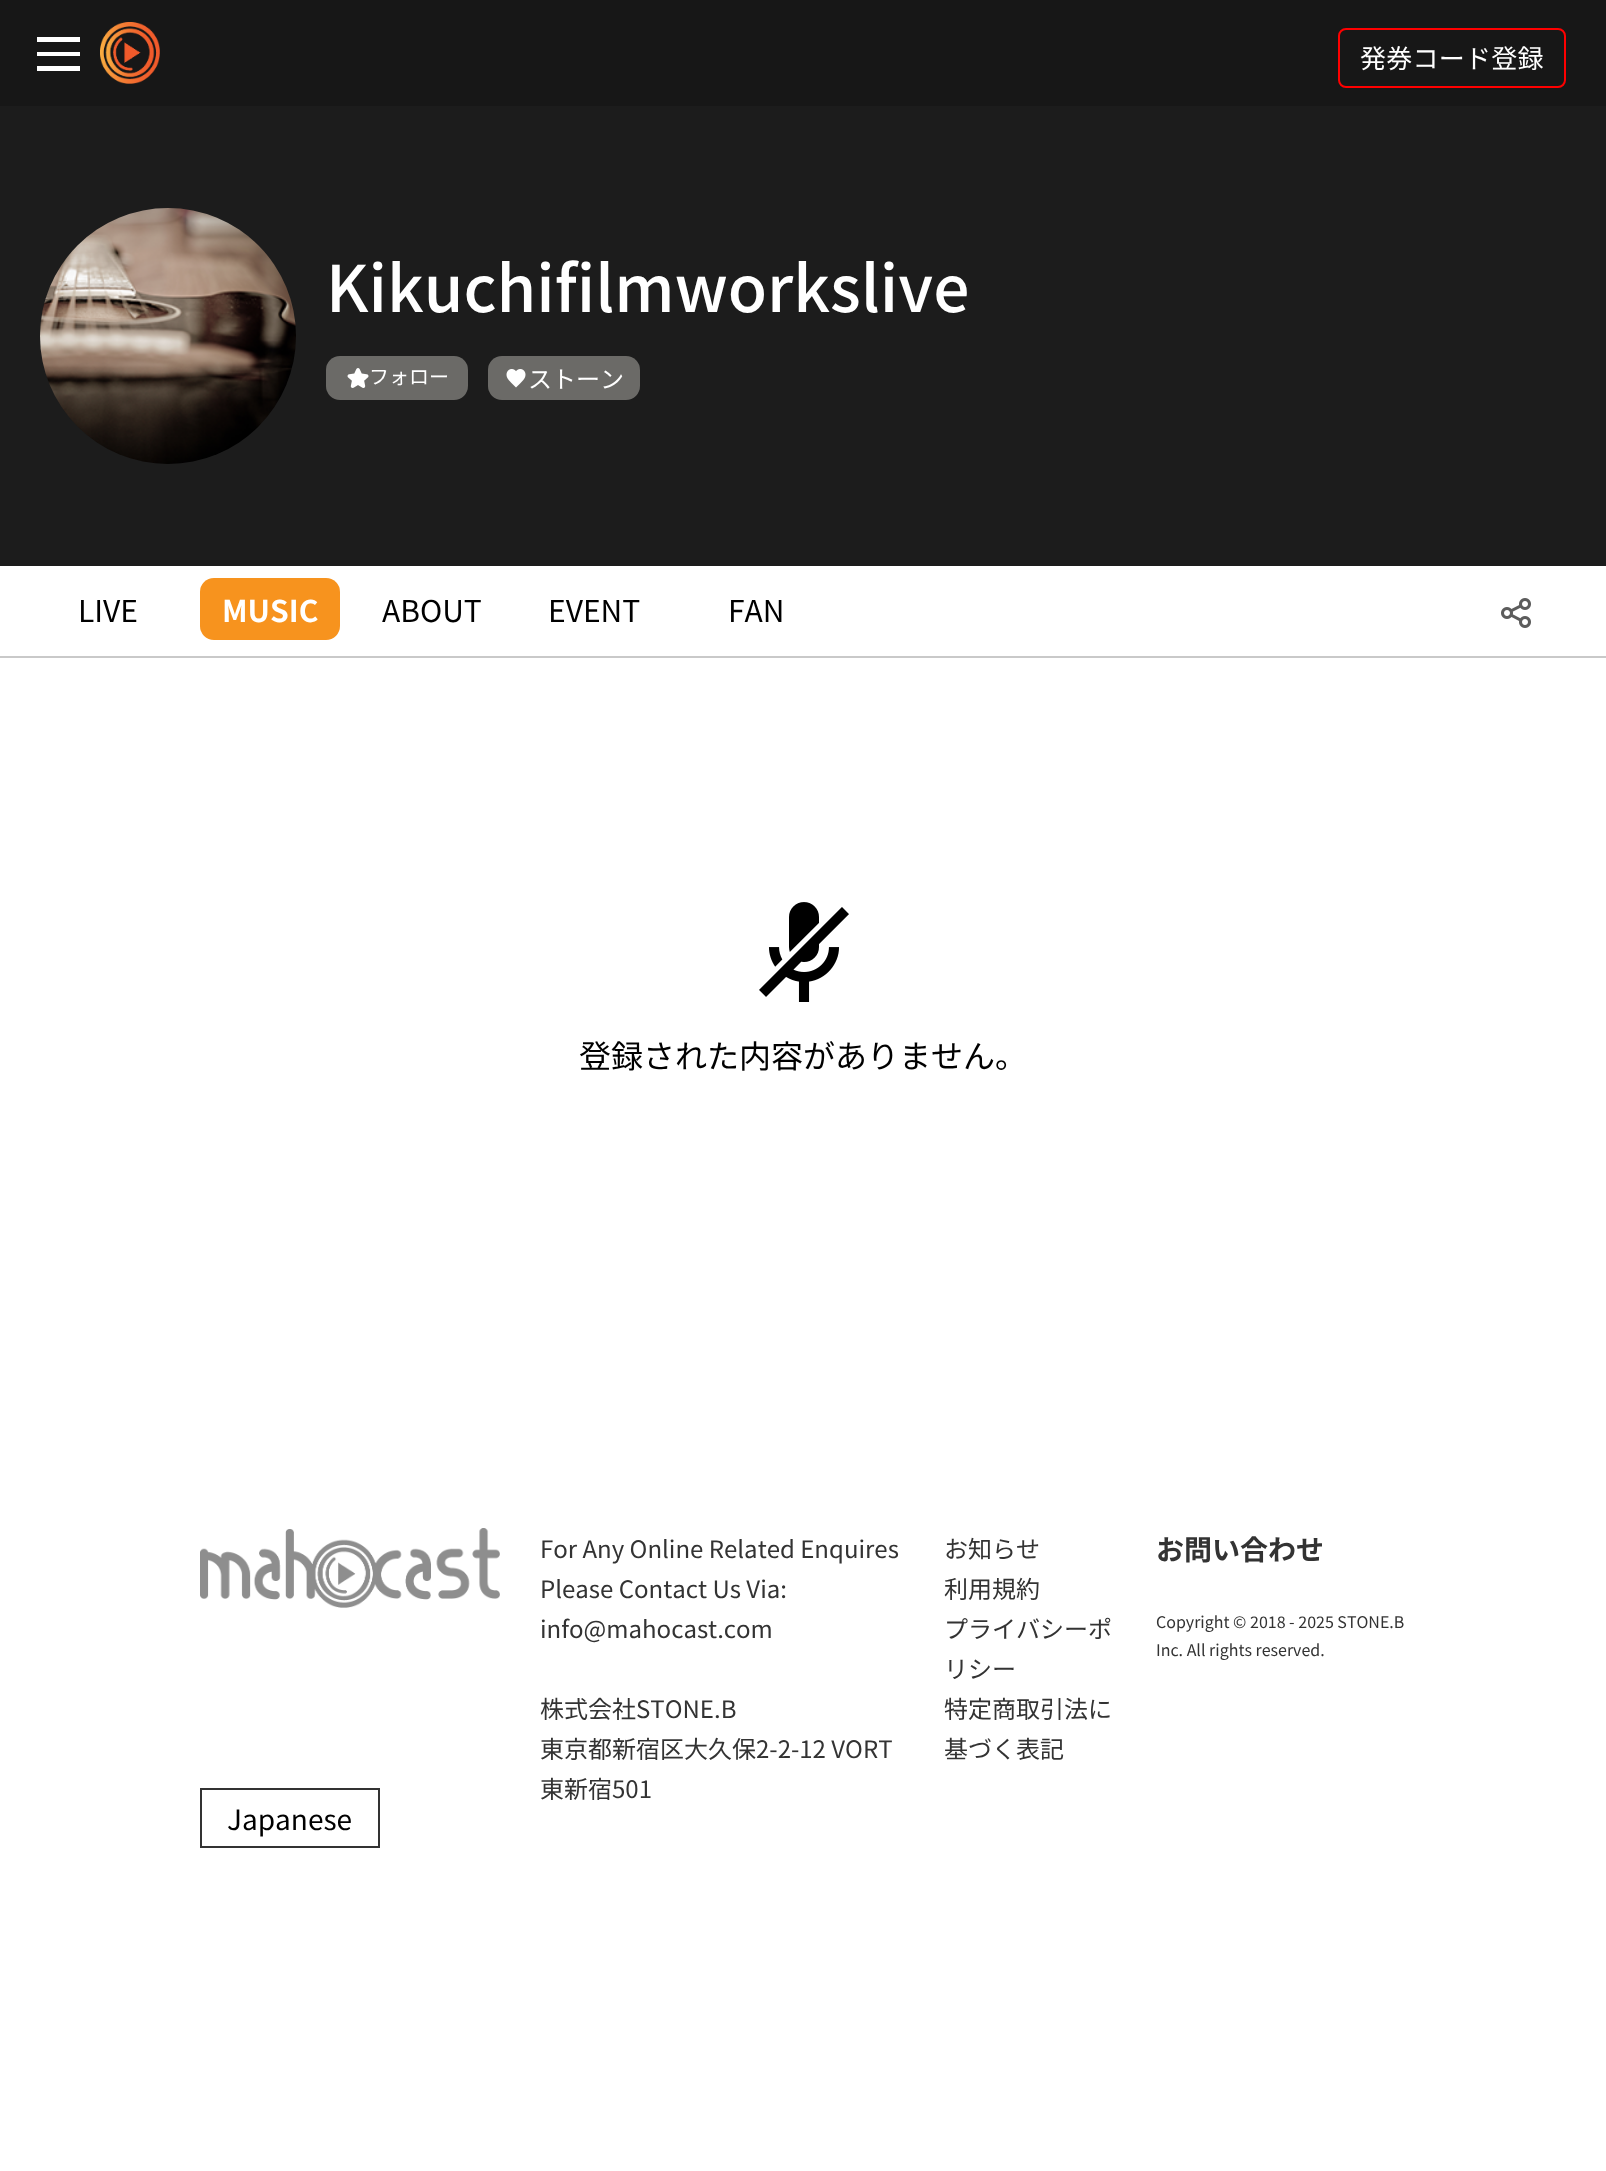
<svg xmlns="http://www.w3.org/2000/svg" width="1606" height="2171">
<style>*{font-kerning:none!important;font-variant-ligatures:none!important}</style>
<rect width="100%" height="100%" fill="#fff"/>
<rect width="1606" height="106" fill="#171717"/>
<path d="M37 71h43v-5h-43zm0-15h43v-4h-43zm0-19v5h43v-5z" fill="#fff"/>
<image x="100" y="22" width="60" height="62" href="media/1.png"/>
<rect x="1339" y="29" width="226" height="58" rx="7" fill="none" stroke="#f00" stroke-width="2"/>
<text x="1360" y="68" style="font-family:Noto Sans JP;font-size:26px;letter-spacing:0.25px;fill:#fff">発券コード登録</text>
<rect y="106" width="1606" height="460" fill="#1c1c1c"/>
<image x="40" y="208" width="256" height="256" href="media/2.png"/>
<text x="326" y="312" style="font-family:Noto Sans JP;font-size:64px;font-weight:500;fill:#fff">Kikuchifilmworkslive</text>
<rect x="326" y="356" width="142" height="44" rx="14" fill="#6b6a67"/>
<image x="347" y="368" width="22" height="20" href="media/3.png"/>
<text x="369" y="384" style="font-family:Noto Sans JP;font-size:20px;fill:#fff">フォロー</text>
<rect x="488" y="356" width="152" height="44" rx="14" fill="#6b6a67"/>
<image x="506" y="369" width="20" height="19" href="media/4.png"/>
<text x="528" y="388" style="font-family:Noto Sans JP;font-size:24px;fill:#fff">ストーン</text>
<rect y="656" width="1606" height="2" fill="#c9c9c9"/>
<text x="78" y="622" style="font-family:Noto Sans JP;font-size:30px;fill:#000">LIVE</text>
<rect x="200" y="578" width="140" height="62" rx="14" fill="#f7931e"/>
<text x="222" y="622" style="font-family:Noto Sans JP;font-size:30px;font-weight:bold;fill:#fff">MUSIC</text>
<text x="382" y="622" style="font-family:Noto Sans JP;font-size:30px;fill:#000">ABOUT</text>
<text x="548" y="622" style="font-family:Noto Sans JP;font-size:30px;fill:#000">EVENT</text>
<text x="728" y="622" style="font-family:Noto Sans JP;font-size:30px;fill:#000">FAN</text>
<image x="1501" y="598" width="30" height="30" href="media/5.png"/>
<image x="759" y="902" width="90" height="100" href="media/6.png"/>
<text x="579" y="1068" style="font-family:Noto Sans JP;font-size:32px;fill:#000">登録された内容がありません。</text>
<text x="540" y="1558" style="font-family:Noto Sans JP;font-size:24px;fill:#333">For Any Online Related Enquires</text>
<text x="540" y="1598" style="font-family:Noto Sans JP;font-size:24px;fill:#333">Please Contact Us Via:</text>
<text x="540" y="1638" style="font-family:Noto Sans JP;font-size:24px;fill:#333">info@mahocast.com</text>
<text x="540" y="1718" style="font-family:Noto Sans JP;font-size:24px;fill:#333">株式会社STONE.B</text>
<text x="540" y="1758" style="font-family:Noto Sans JP;font-size:24px;fill:#333">東京都新宿区大久保2-2-12 VORT</text>
<text x="540" y="1798" style="font-family:Noto Sans JP;font-size:24px;fill:#333">東新宿501</text>
<text x="944" y="1558" style="font-family:Noto Sans JP;font-size:24px;fill:#333">お知らせ</text>
<text x="944" y="1598" style="font-family:Noto Sans JP;font-size:24px;fill:#333">利用規約</text>
<text x="944" y="1638" style="font-family:Noto Sans JP;font-size:24px;fill:#333">プライバシーポ</text>
<text x="944" y="1678" style="font-family:Noto Sans JP;font-size:24px;fill:#333">リシー</text>
<text x="944" y="1718" style="font-family:Noto Sans JP;font-size:24px;fill:#333">特定商取引法に</text>
<text x="944" y="1758" style="font-family:Noto Sans JP;font-size:24px;fill:#333">基づく表記</text>
<text x="1156" y="1560" style="font-family:Noto Sans JP;font-size:28px;font-weight:bold;fill:#333">お問い合わせ</text>
<text x="1156" y="1628" style="font-family:Noto Sans JP;font-size:16px;fill:#333">Copyright © 2018 - 2025 STONE.B</text>
<text x="1156" y="1656" style="font-family:Noto Sans JP;font-size:16px;fill:#333">Inc. All rights reserved.</text>
<image x="200" y="1528" width="300" height="80" href="media/7.png"/>
<rect x="201" y="1789" width="178" height="58" fill="none" stroke="#333" stroke-width="2"/>
<text x="227" y="1830" style="font-family:Noto Sans JP;font-size:28px;fill:#000">Japanese</text>
</svg>
